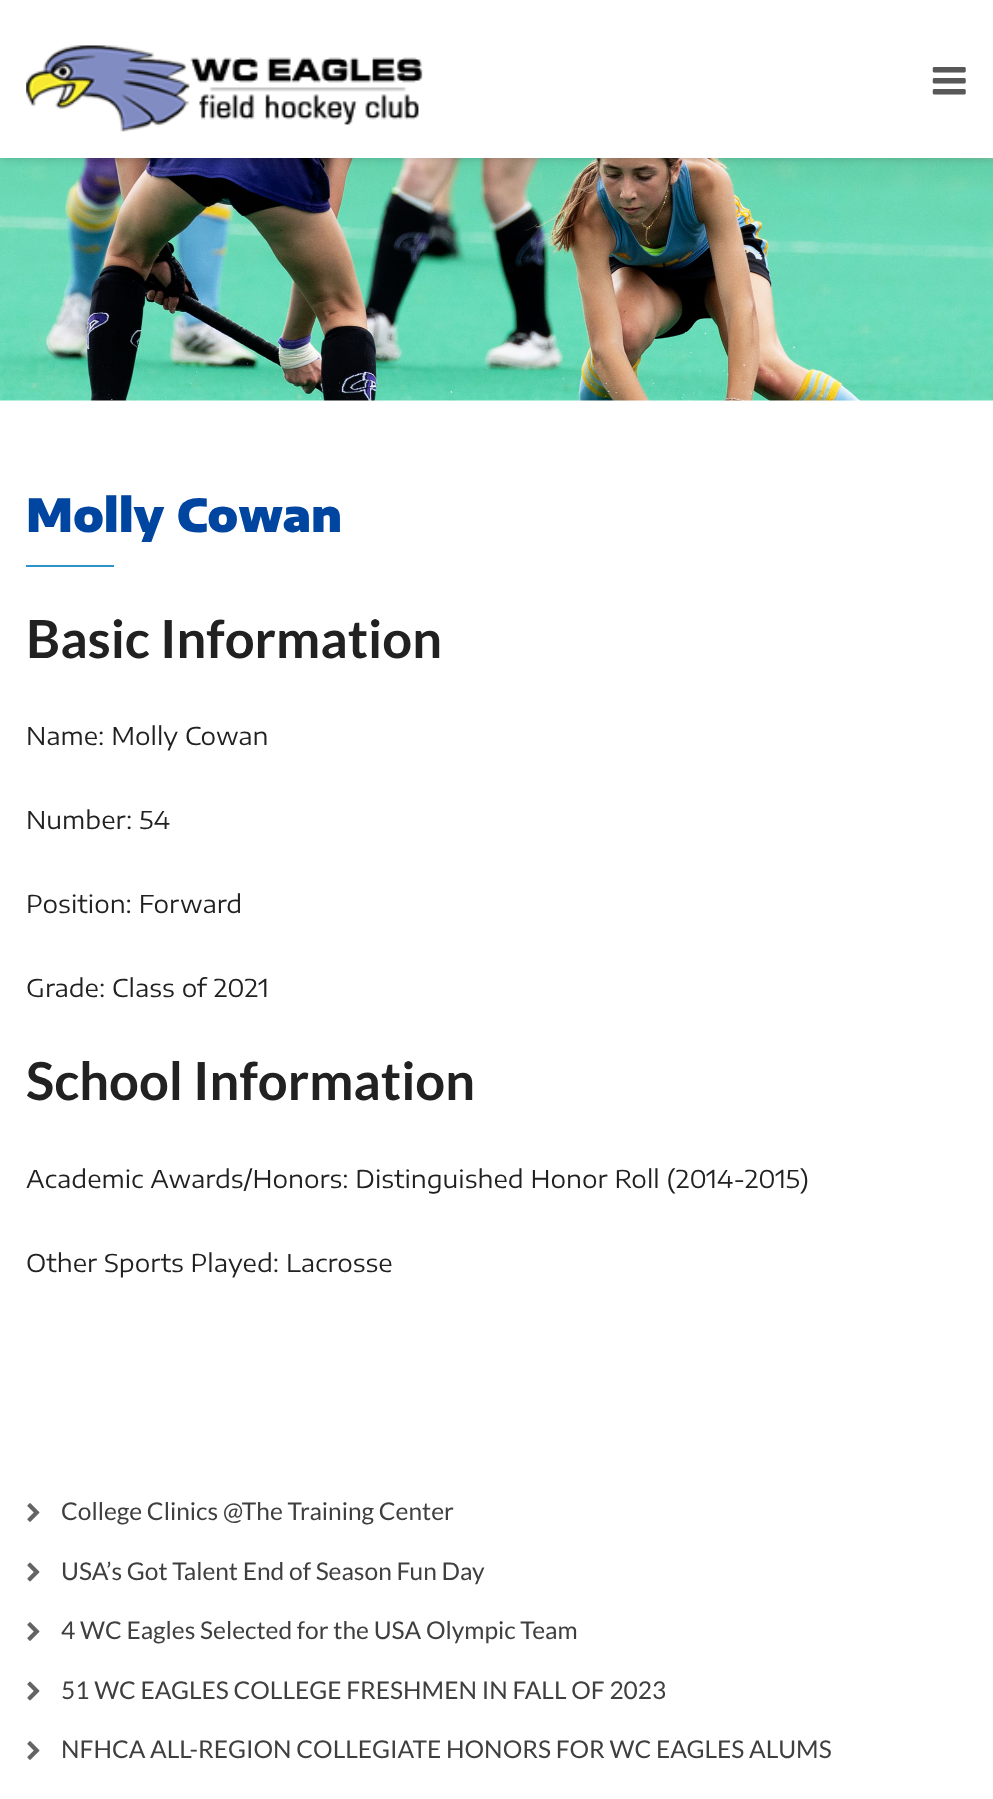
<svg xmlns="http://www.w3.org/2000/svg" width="993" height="1799">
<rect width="100%" height="100%" fill="#fff"/>
<image x="0" y="158" width="993" height="243" href="media/3.png"/>
<rect width="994" height="158" fill="#00000033" filter="blur(4.5px)"/>
<rect width="993" height="158" fill="#fff"/>
<image x="26" y="45" width="397" height="87" href="media/1.png"/>
<image x="932" y="67" width="34" height="28" href="media/2.png"/>
<text x="26" y="532" style="font-family:Encode Sans Semi Expanded;font-size:45.5px;font-weight:900;fill:#0045a0">Molly Cowan</text>
<rect x="26" y="565" width="88" height="2" fill="#2e93cd"/>
<text x="26" y="658" style="font-family:Lato;font-size:52.5px;font-weight:bold;fill:#212121">Basic Information</text>
<text x="26" y="745" style="font-family:Encode Sans Expanded;font-size:24.5px;fill:#212121">Name: Molly Cowan</text>
<text x="26" y="829" style="font-family:Encode Sans Expanded;font-size:24.5px;fill:#212121">Number: 54</text>
<text x="26" y="913" style="font-family:Encode Sans Expanded;font-size:24.5px;fill:#212121">Position: Forward</text>
<text x="26" y="997" style="font-family:Encode Sans Expanded;font-size:24.5px;fill:#212121">Grade: Class of 2021</text>
<text x="26" y="1100" style="font-family:Lato;font-size:52.5px;font-weight:bold;fill:#212121">School Information</text>
<text x="26" y="1188" style="font-family:Encode Sans Expanded;font-size:24.5px;fill:#212121">Academic Awards/Honors: Distinguished Honor Roll (2014-2015)</text>
<text x="26" y="1272" style="font-family:Encode Sans Expanded;font-size:24.5px;fill:#212121">Other Sports Played: Lacrosse</text>
<image x="27" y="1503" width="13" height="19" href="media/4.png"/>
<text x="61" y="1520" style="font-family:Lato;font-size:24.5px;fill:#3f3f3f">College Clinics @The Training Center</text>
<image x="27" y="1562" width="13" height="20" href="media/5.png"/>
<text x="61" y="1580" style="font-family:Lato;font-size:24.5px;fill:#3f3f3f">USA’s Got Talent End of Season Fun Day</text>
<image x="27" y="1622" width="13" height="19" href="media/4.png"/>
<text x="61" y="1639" style="font-family:Lato;font-size:24.5px;fill:#3f3f3f">4 WC Eagles Selected for the USA Olympic Team</text>
<image x="27" y="1681" width="13" height="20" href="media/5.png"/>
<text x="61" y="1699" style="font-family:Lato;font-size:24.5px;fill:#3f3f3f">51 WC EAGLES COLLEGE FRESHMEN IN FALL OF 2023</text>
<image x="27" y="1741" width="13" height="19" href="media/4.png"/>
<text x="61" y="1758" style="font-family:Lato;font-size:24.5px;fill:#3f3f3f">NFHCA ALL-REGION COLLEGIATE HONORS FOR WC EAGLES ALUMS</text>
</svg>
